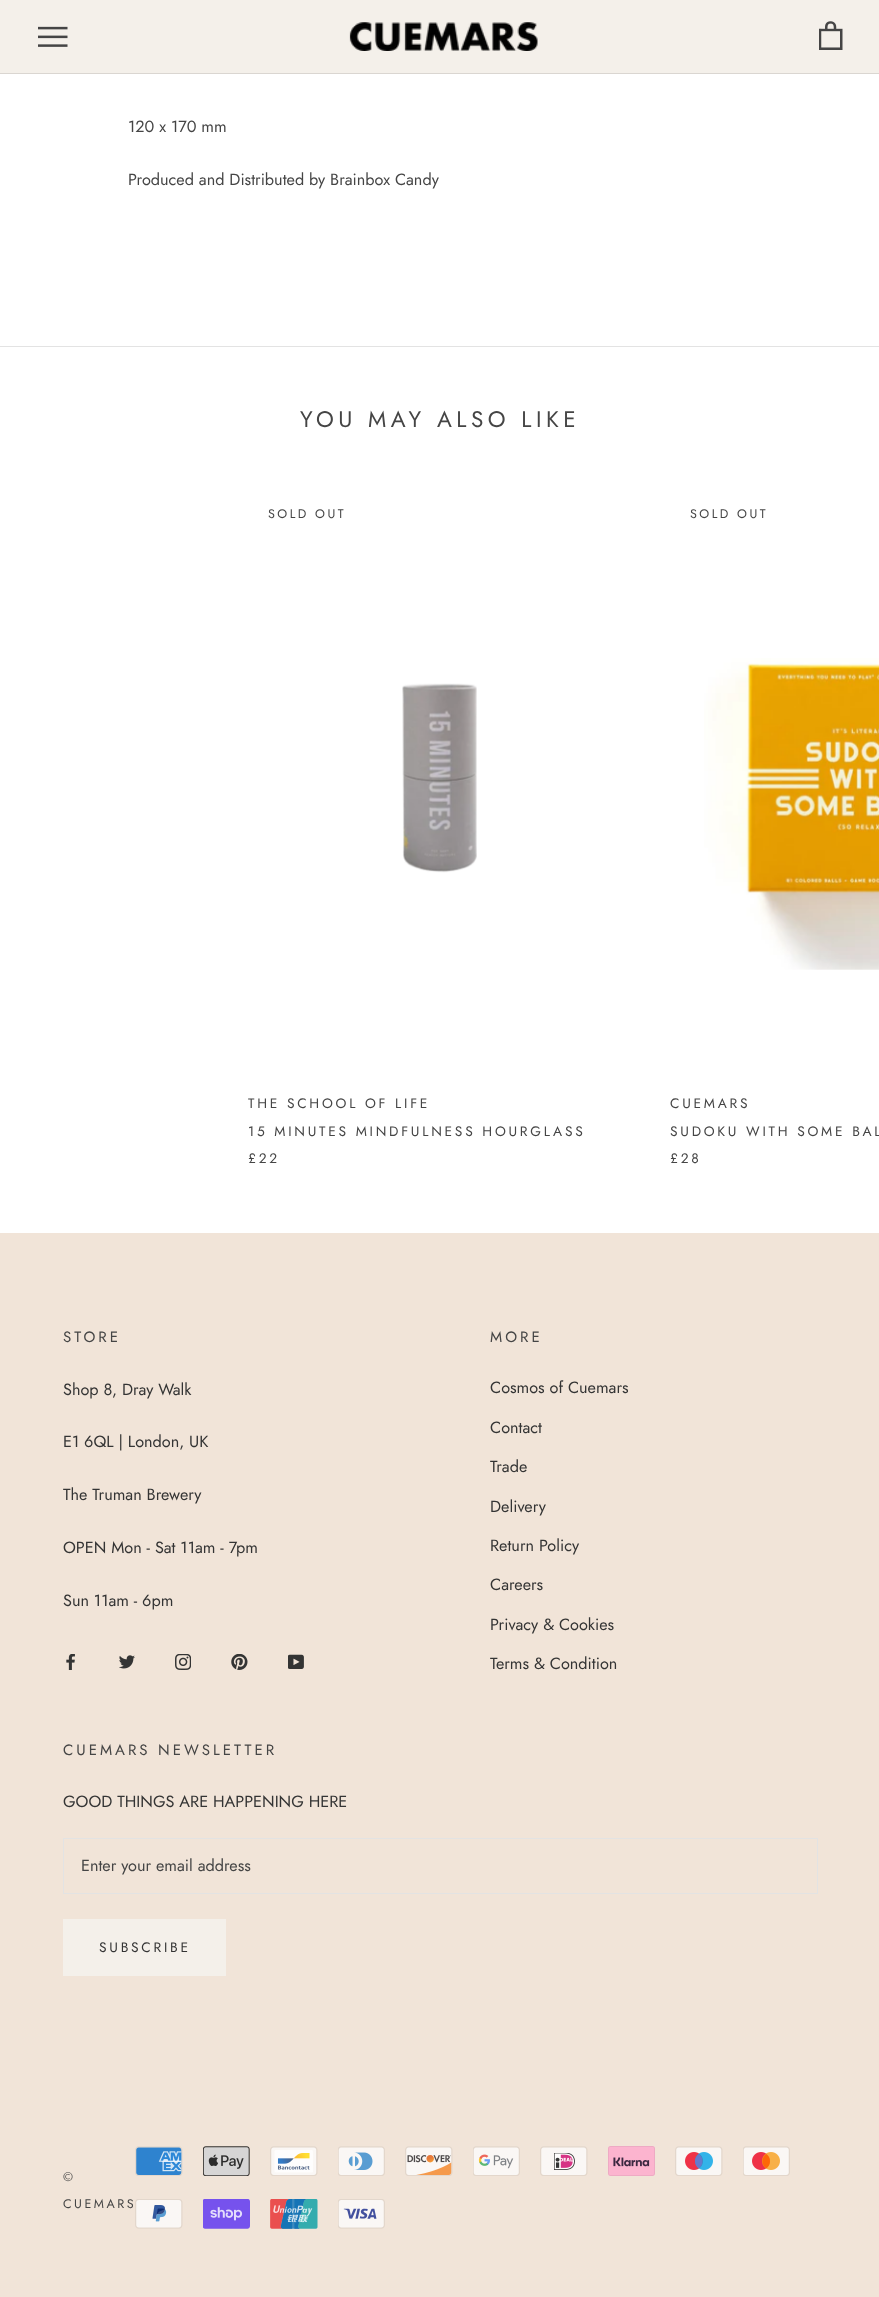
<svg xmlns="http://www.w3.org/2000/svg" width="879" height="2297">
<rect width="100%" height="100%" fill="#fff"/>
<rect width="879" height="73" fill="#f4f0ea"/>
<rect y="73" width="879" height="1" fill="#dad6d1"/>
<image x="38" y="26" width="30" height="21" href="media/1.png"/>
<image x="349" y="22" width="189" height="29" href="media/2.png"/>
<image x="819" y="21" width="24" height="29" href="media/3.png"/>
<text x="128" y="132" style="font-family:Jost;font-size:16.25px;fill:#454545">120 x 170 mm</text>
<text x="128" y="185" style="font-family:Jost;font-size:16.25px;fill:#454545">Produced and Distributed by Brainbox Candy</text>
<rect y="346" width="879" height="1" fill="#e3e3e3"/>
<text x="300" y="427" style="font-family:Jost;font-size:22.5px;letter-spacing:4.5px;fill:#454545">YOU MAY ALSO LIKE</text>
<text x="268" y="518" style="font-family:Jost;font-size:12.5px;letter-spacing:2.5px;fill:#454545">SOLD OUT</text>
<image x="402" y="683" width="75" height="190" href="media/4.png"/>
<text x="248" y="1108" style="font-family:Jost;font-size:13.75px;letter-spacing:2.75px;fill:#454545">THE SCHOOL OF LIFE</text>
<text x="248" y="1136" style="font-family:Jost;font-size:13.75px;letter-spacing:2.75px;fill:#454545">15 MINUTES MINDFULNESS HOURGLASS</text>
<text x="248" y="1163" style="font-family:Jost;font-size:13.75px;letter-spacing:2.75px;fill:#454545">£22</text>
<text x="690" y="518" style="font-family:Jost;font-size:12.5px;letter-spacing:2.5px;fill:#454545">SOLD OUT</text>
<image x="704" y="658" width="175" height="312" href="media/5.png"/>
<text x="670" y="1108" style="font-family:Jost;font-size:13.75px;letter-spacing:2.75px;fill:#454545">CUEMARS</text>
<text x="670" y="1136" style="font-family:Jost;font-size:13.75px;letter-spacing:2.75px;fill:#454545">SUDOKU WITH SOME BAL</text>
<text x="670" y="1163" style="font-family:Jost;font-size:13.75px;letter-spacing:2.75px;fill:#454545">£28</text>
<rect y="1233" width="879" height="1064" fill="#f1e4d8"/>
<text x="63" y="1342" style="font-family:Jost;font-size:15px;letter-spacing:3px;fill:#454545">STORE</text>
<text x="63" y="1395" style="font-family:Jost;font-size:16.25px;fill:#343434">Shop 8, Dray Walk</text>
<text x="63" y="1447" style="font-family:Jost;font-size:16.25px;fill:#343434">E1 6QL | London, UK</text>
<text x="63" y="1500" style="font-family:Jost;font-size:16.25px;fill:#343434">The Truman Brewery</text>
<text x="63" y="1553" style="font-family:Jost;font-size:16.25px;fill:#343434">OPEN Mon - Sat 11am - 7pm</text>
<text x="63" y="1606" style="font-family:Jost;font-size:16.25px;fill:#343434">Sun 11am - 6pm</text>
<image x="66" y="1654" width="9" height="16" href="media/6.png"/>
<image x="119" y="1655" width="16" height="14" href="media/7.png"/>
<image x="175" y="1654" width="16" height="16" href="media/8.png"/>
<image x="231" y="1654" width="17" height="16" href="media/9.png"/>
<image x="288" y="1654" width="16" height="15" href="media/10.png"/>
<text x="490" y="1342" style="font-family:Jost;font-size:15px;letter-spacing:3px;fill:#454545">MORE</text>
<text x="490" y="1393" style="font-family:Jost;font-size:16.25px;fill:#343434">Cosmos of Cuemars</text>
<text x="490" y="1433" style="font-family:Jost;font-size:16.25px;fill:#343434">Contact</text>
<text x="490" y="1472" style="font-family:Jost;font-size:16.25px;fill:#343434">Trade</text>
<text x="490" y="1512" style="font-family:Jost;font-size:16.25px;fill:#343434">Delivery</text>
<text x="490" y="1551" style="font-family:Jost;font-size:16.25px;fill:#343434">Return Policy</text>
<text x="490" y="1590" style="font-family:Jost;font-size:16.25px;fill:#343434">Careers</text>
<text x="490" y="1630" style="font-family:Jost;font-size:16.25px;fill:#343434">Privacy &amp; Cookies</text>
<text x="490" y="1669" style="font-family:Jost;font-size:16.25px;fill:#343434">Terms &amp; Condition</text>
<text x="63" y="1755" style="font-family:Jost;font-size:15px;letter-spacing:3px;fill:#454545">CUEMARS NEWSLETTER</text>
<text x="63" y="1807" style="font-family:Jost;font-size:16.25px;fill:#343434">GOOD THINGS ARE HAPPENING HERE</text>
<rect x="63.5" y="1838.5" width="754" height="55" fill="none" stroke="#e3e3e3"/>
<text x="81" y="1871" style="font-family:Jost;font-size:16.25px;fill:#454545">Enter your email address</text>
<rect x="63.5" y="1919.5" width="162" height="56" fill="none" stroke="#f4f0ea"/>
<rect x="64" y="1920" width="161" height="55" fill="#f4f0ea"/>
<text x="99" y="1952" style="font-family:Jost;font-size:13.75px;letter-spacing:2.75px;fill:#343434">SUBSCRIBE</text>
<text x="63" y="2181" style="font-family:Jost;font-size:12.5px;letter-spacing:2.5px;fill:#454545">©</text>
<text x="63" y="2208" style="font-family:Jost;font-size:12.5px;letter-spacing:2.5px;fill:#454545">CUEMARS</text>
<image x="135" y="2146" width="48" height="30" href="media/11.png"/>
<image x="203" y="2146" width="47" height="30" href="media/12.png"/>
<image x="270" y="2146" width="48" height="30" href="media/13.png"/>
<image x="338" y="2146" width="47" height="30" href="media/14.png"/>
<image x="405" y="2146" width="48" height="30" href="media/15.png"/>
<image x="473" y="2146" width="47" height="30" href="media/16.png"/>
<image x="540" y="2146" width="48" height="30" href="media/17.png"/>
<image x="608" y="2146" width="47" height="30" href="media/18.png"/>
<image x="675" y="2146" width="48" height="30" href="media/19.png"/>
<image x="743" y="2146" width="47" height="30" href="media/20.png"/>
<image x="135" y="2199" width="48" height="30" href="media/21.png"/>
<image x="203" y="2199" width="47" height="30" href="media/22.png"/>
<image x="270" y="2199" width="48" height="30" href="media/23.png"/>
<image x="338" y="2199" width="47" height="30" href="media/24.png"/>
</svg>
